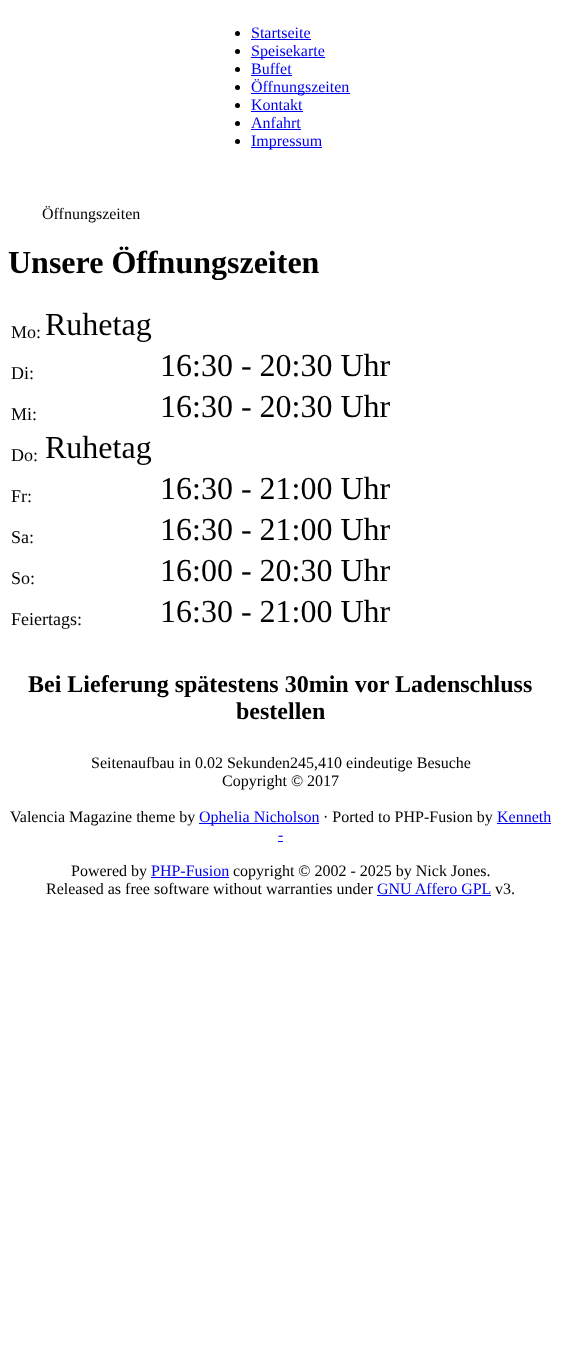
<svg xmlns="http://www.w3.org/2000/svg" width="561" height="1353">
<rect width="100%" height="100%" fill="#fff"/>
<circle cx="237.5" cy="33.5" r="2.5" fill="#000"/>
<text x="251" y="38" style="font-family:Liberation Serif;font-size:16px;fill:#00e">Startseite</text>
<rect x="251" y="39" width="60" height="1" fill="#00e"/>
<circle cx="237.5" cy="51.5" r="2.5" fill="#000"/>
<rect x="251" y="57" width="74" height="1" fill="#00e"/>
<text x="251" y="56" style="font-family:Liberation Serif;font-size:16px;fill:#00e">Speisekarte</text>
<circle cx="237.5" cy="69.5" r="2.5" fill="#000"/>
<text x="251" y="74" style="font-family:Liberation Serif;font-size:16px;fill:#00e">Buffet</text>
<rect x="251" y="75" width="41" height="1" fill="#00e"/>
<circle cx="237.5" cy="87.5" r="2.5" fill="#000"/>
<rect x="251" y="93" width="99" height="1" fill="#00e"/>
<text x="251" y="92" style="font-family:Liberation Serif;font-size:16px;fill:#00e">Öffnungszeiten</text>
<circle cx="237.5" cy="105.5" r="2.5" fill="#000"/>
<text x="251" y="110" style="font-family:Liberation Serif;font-size:16px;fill:#00e">Kontakt</text>
<rect x="251" y="111" width="52" height="1" fill="#00e"/>
<circle cx="237.5" cy="123.5" r="2.5" fill="#000"/>
<text x="251" y="128" style="font-family:Liberation Serif;font-size:16px;fill:#00e">Anfahrt</text>
<rect x="251" y="129" width="50" height="1" fill="#00e"/>
<circle cx="237.5" cy="141.5" r="2.5" fill="#000"/>
<rect x="251" y="147" width="71" height="1" fill="#00e"/>
<text x="251" y="146" style="font-family:Liberation Serif;font-size:16px;fill:#00e">Impressum</text>
<text x="42" y="219" style="font-family:Liberation Serif;font-size:16px;fill:#000">Öffnungszeiten</text>
<text x="8" y="273" style="font-family:Liberation Serif;font-size:32px;font-weight:bold;fill:#000">Unsere Öffnungszeiten</text>
<text x="11" y="338" style="font-family:Liberation Serif;font-size:18px;fill:#000">Mo:</text>
<text x="45" y="335" style="font-family:Liberation Serif;font-size:32px;fill:#000">Ruhetag</text>
<text x="11" y="379" style="font-family:Liberation Serif;font-size:18px;fill:#000">Di:</text>
<text x="160" y="376" style="font-family:Liberation Serif;font-size:32px;fill:#000">16:30 - 20:30 Uhr</text>
<text x="11" y="420" style="font-family:Liberation Serif;font-size:18px;fill:#000">Mi:</text>
<text x="160" y="417" style="font-family:Liberation Serif;font-size:32px;fill:#000">16:30 - 20:30 Uhr</text>
<text x="11" y="461" style="font-family:Liberation Serif;font-size:18px;fill:#000">Do:</text>
<text x="45" y="458" style="font-family:Liberation Serif;font-size:32px;fill:#000">Ruhetag</text>
<text x="11" y="502" style="font-family:Liberation Serif;font-size:18px;fill:#000">Fr:</text>
<text x="160" y="499" style="font-family:Liberation Serif;font-size:32px;fill:#000">16:30 - 21:00 Uhr</text>
<text x="11" y="543" style="font-family:Liberation Serif;font-size:18px;fill:#000">Sa:</text>
<text x="160" y="540" style="font-family:Liberation Serif;font-size:32px;fill:#000">16:30 - 21:00 Uhr</text>
<text x="11" y="584" style="font-family:Liberation Serif;font-size:18px;fill:#000">So:</text>
<text x="160" y="581" style="font-family:Liberation Serif;font-size:32px;fill:#000">16:00 - 20:30 Uhr</text>
<text x="11" y="625" style="font-family:Liberation Serif;font-size:18px;fill:#000">Feiertags:</text>
<text x="160" y="622" style="font-family:Liberation Serif;font-size:32px;fill:#000">16:30 - 21:00 Uhr</text>
<text x="28" y="692" style="font-family:Liberation Serif;font-size:24px;font-weight:bold;fill:#000">Bei Lieferung spätestens 30min vor Ladenschluss</text>
<text x="236" y="719" style="font-family:Liberation Serif;font-size:24px;font-weight:bold;fill:#000">bestellen</text>
<text x="91" y="768" style="font-family:Liberation Serif;font-size:16px;fill:#000">Seitenaufbau in 0.02 Sekunden245,410 eindeutige Besuche</text>
<text x="222" y="786" style="font-family:Liberation Serif;font-size:16px;fill:#000">Copyright © 2017</text>
<text x="10" y="822" style="font-family:Liberation Serif;font-size:16px;fill:#000">Valencia Magazine theme by</text>
<rect x="199" y="823" width="120" height="1" fill="#00e"/>
<text x="199" y="822" style="font-family:Liberation Serif;font-size:16px;fill:#00e">Ophelia Nicholson</text>
<text x="323" y="822" style="font-family:Liberation Serif;font-size:16px;fill:#000">· Ported to PHP-Fusion by</text>
<text x="497" y="822" style="font-family:Liberation Serif;font-size:16px;fill:#00e">Kenneth</text>
<rect x="497" y="823" width="54" height="1" fill="#00e"/>
<text x="278" y="840" style="font-family:Liberation Serif;font-size:16px;fill:#00e">-</text>
<rect x="278" y="841" width="5" height="1" fill="#00e"/>
<text x="71" y="876" style="font-family:Liberation Serif;font-size:16px;fill:#000">Powered by</text>
<text x="151" y="876" style="font-family:Liberation Serif;font-size:16px;fill:#00e">PHP-Fusion</text>
<rect x="151" y="877" width="78" height="1" fill="#00e"/>
<text x="233" y="876" style="font-family:Liberation Serif;font-size:16px;fill:#000">copyright © 2002 - 2025 by Nick Jones.</text>
<text x="46" y="894" style="font-family:Liberation Serif;font-size:16px;fill:#000">Released as free software without warranties under</text>
<text x="377" y="894" style="font-family:Liberation Serif;font-size:16px;fill:#00e">GNU Affero GPL</text>
<rect x="377" y="895" width="114" height="1" fill="#00e"/>
<text x="495" y="894" style="font-family:Liberation Serif;font-size:16px;fill:#000">v3.</text>
</svg>
